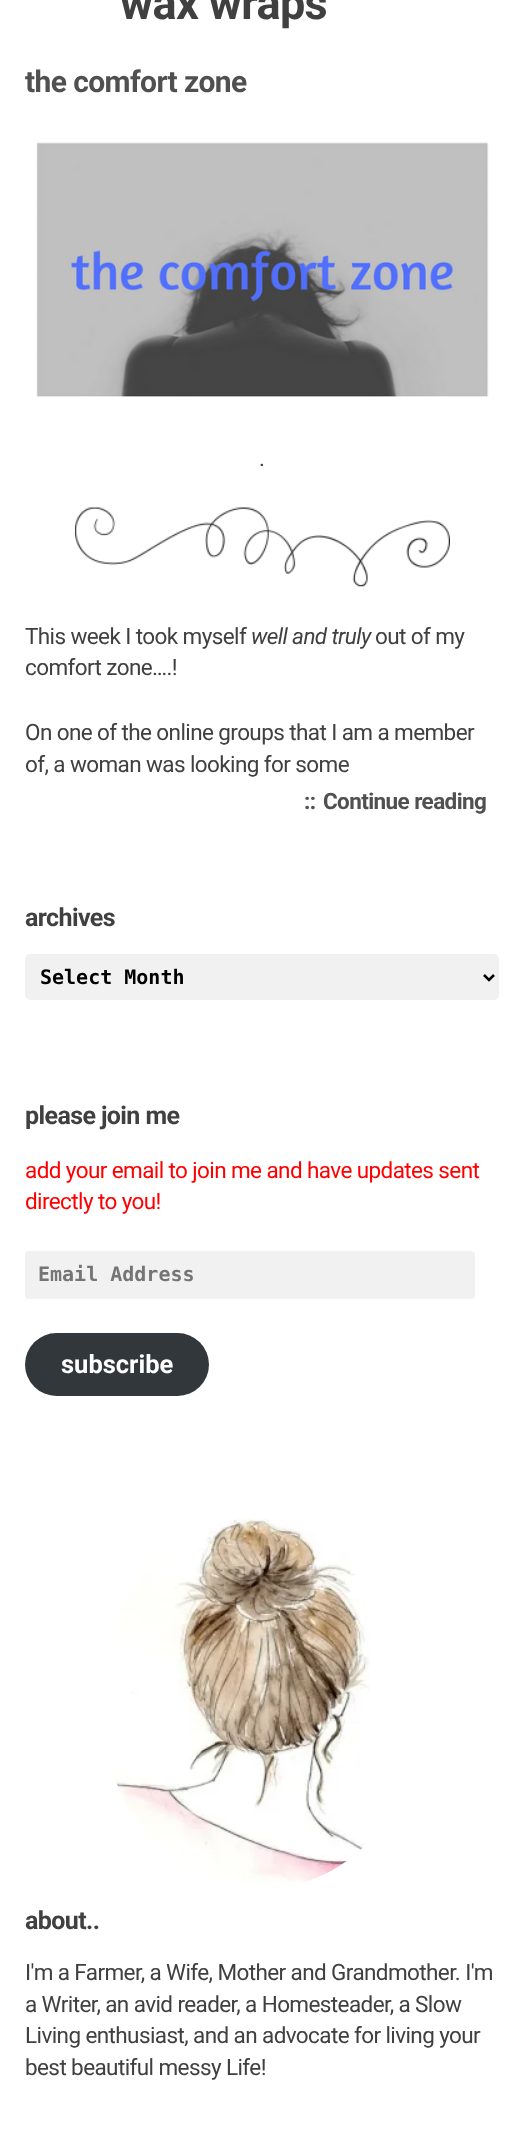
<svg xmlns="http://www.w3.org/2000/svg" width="523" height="2155">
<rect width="100%" height="100%" fill="#fff"/>
<text x="120" y="19" style="font-family:Roboto;font-size:45px;font-weight:bold;letter-spacing:-0.6px;fill:#404040">wax wraps</text>
<text x="25" y="92" style="font-family:Roboto;font-size:30px;font-weight:bold;letter-spacing:-0.6px;fill:#505050">the comfort zone</text>
<image x="36" y="142" width="453" height="255" href="media/1.png"/>
<text x="259" y="466" style="font-family:Roboto;font-size:22.5px;letter-spacing:-0.6px;fill:#404040">.</text>
<image x="75" y="507" width="375" height="80" href="media/2.png"/>
<text x="25" y="644" style="font-family:Roboto;font-size:22.5px;letter-spacing:-0.6px;fill:#404040">This week I took myself</text>
<text x="251" y="644" style="font-family:Roboto;font-size:22.5px;font-style:italic;letter-spacing:-0.6px;fill:#404040">well and truly</text>
<text x="375" y="644" style="font-family:Roboto;font-size:22.5px;letter-spacing:-0.6px;fill:#404040">out of my</text>
<text x="25" y="675" style="font-family:Roboto;font-size:22.5px;letter-spacing:-0.6px;fill:#404040">comfort zone….!</text>
<text x="25" y="740" style="font-family:Roboto;font-size:22.5px;letter-spacing:-0.6px;fill:#404040">On one of the online groups that I am a member</text>
<text x="25" y="772" style="font-family:Roboto;font-size:22.5px;letter-spacing:-0.6px;fill:#404040">of, a woman was looking for some</text>
<text x="304" y="809" style="font-family:Roboto;font-size:22.5px;font-weight:bold;letter-spacing:-0.6px;fill:#505050">::</text>
<text x="323" y="809" style="font-family:Roboto;font-size:22.5px;font-weight:bold;letter-spacing:-0.6px;fill:#505050">Continue reading</text>
<text x="25" y="926" style="font-family:Roboto;font-size:25px;font-weight:bold;letter-spacing:-0.6px;fill:#404040">archives</text>
<rect x="25" y="954" width="474" height="46" rx="5" fill="#f1f1f1"/>
<path d="M484 975l5 5l5-5" fill="none" stroke="#000" stroke-width="2.5"/>
<text x="40" y="984" style="font-family:DejaVu Sans Mono;font-size:20px;font-weight:bold;fill:#000">Select Month</text>
<text x="25" y="1124" style="font-family:Roboto;font-size:25px;font-weight:bold;letter-spacing:-0.6px;fill:#404040">please join me</text>
<text x="25" y="1178" style="font-family:Roboto;font-size:22.5px;letter-spacing:-0.6px;fill:#f00">add your email to join me and have updates sent</text>
<text x="25" y="1209" style="font-family:Roboto;font-size:22.5px;letter-spacing:-0.6px;fill:#f00">directly to you!</text>
<rect x="25" y="1251" width="450" height="48" rx="4" fill="#f1f1f1"/>
<text x="38" y="1281" style="font-family:DejaVu Sans Mono;font-size:20px;font-weight:bold;fill:#757575">Email Address</text>
<rect x="25" y="1333" width="184" height="63" rx="31.5" fill="#32373c"/>
<text x="61" y="1373" style="font-family:Roboto;font-size:25.5px;font-weight:bold;fill:#fff">subscribe</text>
<image x="115" y="1518" width="255" height="366" href="media/3.png"/>
<text x="25" y="1929" style="font-family:Roboto;font-size:25px;font-weight:bold;letter-spacing:-0.6px;fill:#404040">about..</text>
<text x="25" y="1980" style="font-family:Roboto;font-size:22.5px;letter-spacing:-0.6px;fill:#404040">I'm a Farmer, a Wife, Mother and Grandmother. I'm</text>
<text x="25" y="2012" style="font-family:Roboto;font-size:22.5px;letter-spacing:-0.6px;fill:#404040">a Writer, an avid reader, a Homesteader, a Slow</text>
<text x="25" y="2043" style="font-family:Roboto;font-size:22.5px;letter-spacing:-0.6px;fill:#404040">Living enthusiast, and an advocate for living your</text>
<text x="25" y="2075" style="font-family:Roboto;font-size:22.5px;letter-spacing:-0.6px;fill:#404040">best beautiful messy Life!</text>
</svg>
